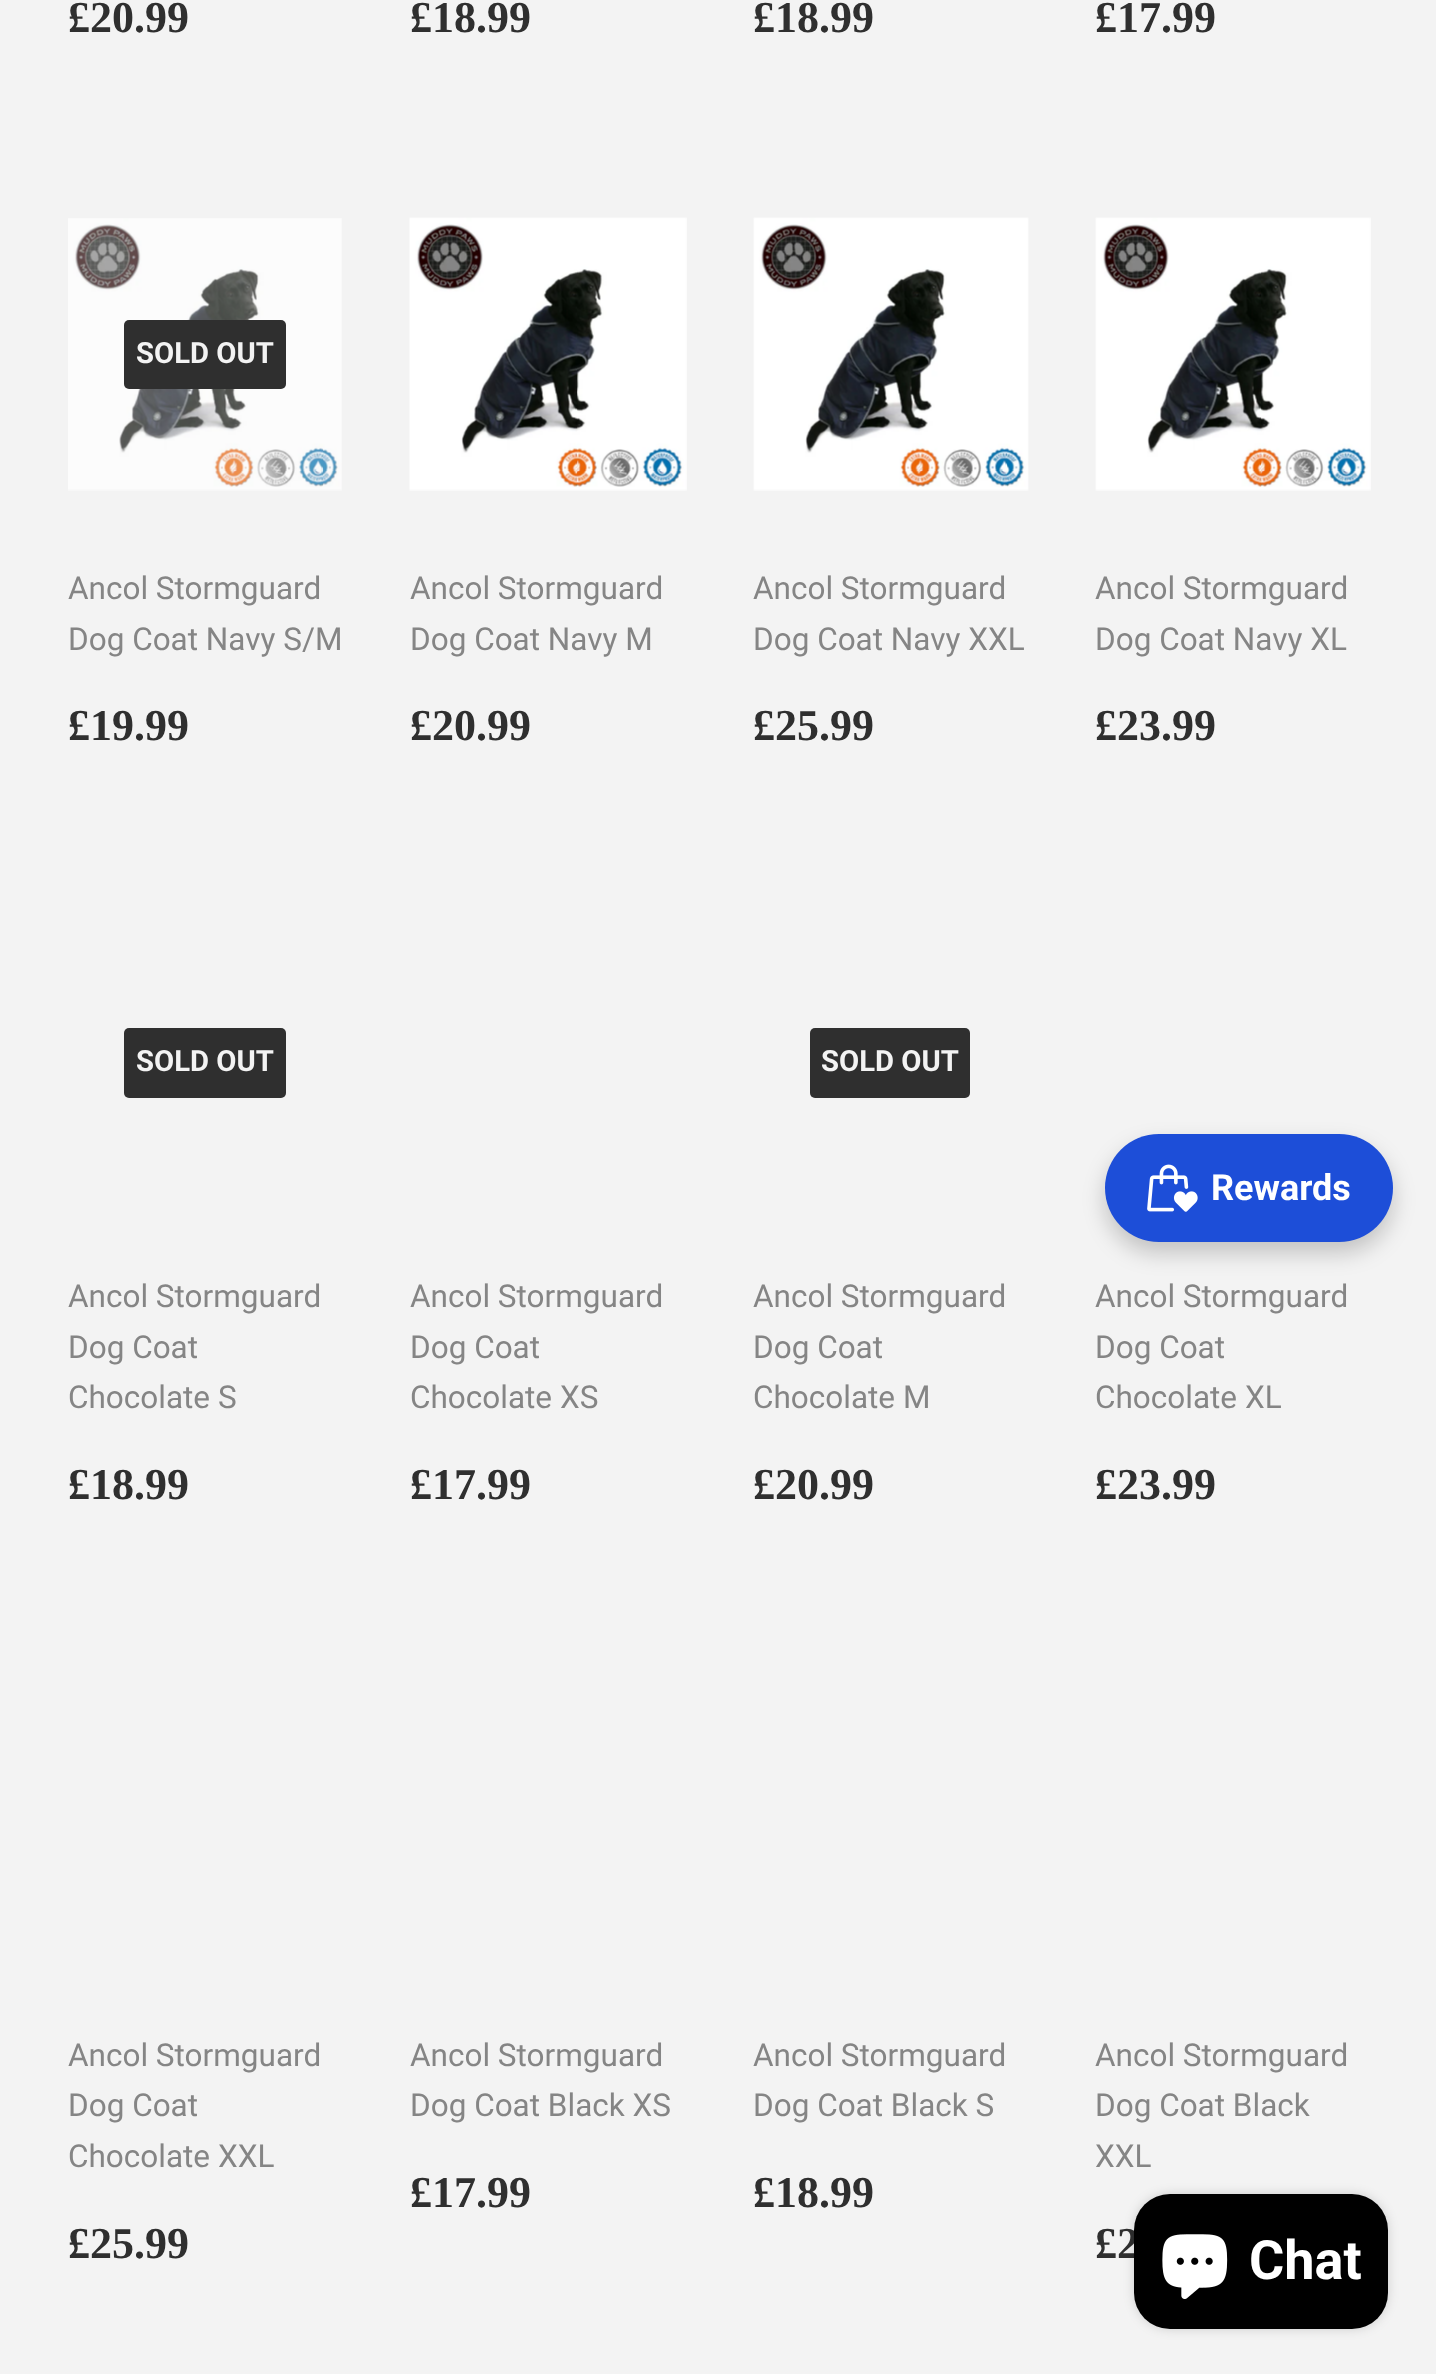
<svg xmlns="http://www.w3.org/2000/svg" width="1436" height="2374">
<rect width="100%" height="100%" fill="#f3f3f3"/>
<text x="68" y="32" style="font-family:Liberation Serif;font-size:44px;font-weight:bold;fill:#2f2f2f">£20.99</text>
<text x="410" y="32" style="font-family:Liberation Serif;font-size:44px;font-weight:bold;fill:#2f2f2f">£18.99</text>
<text x="753" y="32" style="font-family:Liberation Serif;font-size:44px;font-weight:bold;fill:#2f2f2f">£18.99</text>
<text x="1095" y="32" style="font-family:Liberation Serif;font-size:44px;font-weight:bold;fill:#2f2f2f">£17.99</text>
<image x="68" y="218" width="274" height="273" href="media/1.png"/>
<rect x="124" y="320" width="162" height="69" rx="5" fill="#2f2f2f"/>
<text x="136" y="363" style="font-family:Roboto;font-size:29.25px;font-weight:bold;fill:#f3f3f3">SOLD OUT</text>
<text x="68" y="599" style="font-family:Roboto;font-size:31.5px;fill:#858585">Ancol Stormguard</text>
<text x="68" y="650" style="font-family:Roboto;font-size:31.5px;fill:#858585">Dog Coat Navy S/M</text>
<text x="68" y="740" style="font-family:Liberation Serif;font-size:44px;font-weight:bold;fill:#2f2f2f">£19.99</text>
<image x="409" y="217" width="278" height="274" href="media/2.png"/>
<text x="410" y="599" style="font-family:Roboto;font-size:31.5px;fill:#858585">Ancol Stormguard</text>
<text x="410" y="650" style="font-family:Roboto;font-size:31.5px;fill:#858585">Dog Coat Navy M</text>
<text x="410" y="740" style="font-family:Liberation Serif;font-size:44px;font-weight:bold;fill:#2f2f2f">£20.99</text>
<image x="753" y="217" width="276" height="274" href="media/3.png"/>
<text x="753" y="599" style="font-family:Roboto;font-size:31.5px;fill:#858585">Ancol Stormguard</text>
<text x="753" y="650" style="font-family:Roboto;font-size:31.5px;fill:#858585">Dog Coat Navy XXL</text>
<text x="753" y="740" style="font-family:Liberation Serif;font-size:44px;font-weight:bold;fill:#2f2f2f">£25.99</text>
<image x="1095" y="217" width="276" height="274" href="media/4.png"/>
<text x="1095" y="599" style="font-family:Roboto;font-size:31.5px;fill:#858585">Ancol Stormguard</text>
<text x="1095" y="650" style="font-family:Roboto;font-size:31.5px;fill:#858585">Dog Coat Navy XL</text>
<text x="1095" y="740" style="font-family:Liberation Serif;font-size:44px;font-weight:bold;fill:#2f2f2f">£23.99</text>
<rect x="124" y="1028" width="162" height="70" rx="5" fill="#2f2f2f"/>
<text x="136" y="1071" style="font-family:Roboto;font-size:29.25px;font-weight:bold;fill:#f3f3f3">SOLD OUT</text>
<text x="68" y="1307" style="font-family:Roboto;font-size:31.5px;fill:#858585">Ancol Stormguard</text>
<text x="68" y="1358" style="font-family:Roboto;font-size:31.5px;fill:#858585">Dog Coat</text>
<text x="68" y="1408" style="font-family:Roboto;font-size:31.5px;fill:#858585">Chocolate S</text>
<text x="68" y="1499" style="font-family:Liberation Serif;font-size:44px;font-weight:bold;fill:#2f2f2f">£18.99</text>
<text x="410" y="1307" style="font-family:Roboto;font-size:31.5px;fill:#858585">Ancol Stormguard</text>
<text x="410" y="1358" style="font-family:Roboto;font-size:31.5px;fill:#858585">Dog Coat</text>
<text x="410" y="1408" style="font-family:Roboto;font-size:31.5px;fill:#858585">Chocolate XS</text>
<text x="410" y="1499" style="font-family:Liberation Serif;font-size:44px;font-weight:bold;fill:#2f2f2f">£17.99</text>
<rect x="810" y="1028" width="160" height="70" rx="5" fill="#2f2f2f"/>
<text x="821" y="1071" style="font-family:Roboto;font-size:29.25px;font-weight:bold;fill:#f3f3f3">SOLD OUT</text>
<text x="753" y="1307" style="font-family:Roboto;font-size:31.5px;fill:#858585">Ancol Stormguard</text>
<text x="753" y="1358" style="font-family:Roboto;font-size:31.5px;fill:#858585">Dog Coat</text>
<text x="753" y="1408" style="font-family:Roboto;font-size:31.5px;fill:#858585">Chocolate M</text>
<text x="753" y="1499" style="font-family:Liberation Serif;font-size:44px;font-weight:bold;fill:#2f2f2f">£20.99</text>
<text x="1095" y="1307" style="font-family:Roboto;font-size:31.5px;fill:#858585">Ancol Stormguard</text>
<text x="1095" y="1358" style="font-family:Roboto;font-size:31.5px;fill:#858585">Dog Coat</text>
<text x="1095" y="1408" style="font-family:Roboto;font-size:31.5px;fill:#858585">Chocolate XL</text>
<text x="1095" y="1499" style="font-family:Liberation Serif;font-size:44px;font-weight:bold;fill:#2f2f2f">£23.99</text>
<text x="68" y="2066" style="font-family:Roboto;font-size:31.5px;fill:#858585">Ancol Stormguard</text>
<text x="68" y="2116" style="font-family:Roboto;font-size:31.5px;fill:#858585">Dog Coat</text>
<text x="68" y="2167" style="font-family:Roboto;font-size:31.5px;fill:#858585">Chocolate XXL</text>
<text x="68" y="2258" style="font-family:Liberation Serif;font-size:44px;font-weight:bold;fill:#2f2f2f">£25.99</text>
<text x="410" y="2066" style="font-family:Roboto;font-size:31.5px;fill:#858585">Ancol Stormguard</text>
<text x="410" y="2116" style="font-family:Roboto;font-size:31.5px;fill:#858585">Dog Coat Black XS</text>
<text x="410" y="2207" style="font-family:Liberation Serif;font-size:44px;font-weight:bold;fill:#2f2f2f">£17.99</text>
<text x="753" y="2066" style="font-family:Roboto;font-size:31.5px;fill:#858585">Ancol Stormguard</text>
<text x="753" y="2116" style="font-family:Roboto;font-size:31.5px;fill:#858585">Dog Coat Black S</text>
<text x="753" y="2207" style="font-family:Liberation Serif;font-size:44px;font-weight:bold;fill:#2f2f2f">£18.99</text>
<text x="1095" y="2066" style="font-family:Roboto;font-size:31.5px;fill:#858585">Ancol Stormguard</text>
<text x="1095" y="2116" style="font-family:Roboto;font-size:31.5px;fill:#858585">Dog Coat Black</text>
<text x="1095" y="2167" style="font-family:Roboto;font-size:31.5px;fill:#858585">XXL</text>
<text x="1095" y="2258" style="font-family:Liberation Serif;font-size:44px;font-weight:bold;fill:#2f2f2f">£2</text>
<rect x="1105" y="1145" width="288" height="108" rx="54" fill="#00000033" filter="blur(11px)"/>
<rect x="1105" y="1134" width="288" height="108" rx="54" fill="#1d4ed8"/>
<image x="1147" y="1164" width="51" height="48" href="media/5.png"/>
<text x="1211" y="1200" style="font-family:Roboto;font-size:36px;font-weight:bold;fill:#fff">Rewards</text>
<rect x="1134" y="2194" width="254" height="135" rx="36" fill="#00000026" filter="blur(5.5px)"/>
<rect x="1134" y="2194" width="254" height="135" rx="36" fill="#000"/>
<image x="1162" y="2234" width="66" height="65" href="media/6.png"/>
<text x="1249" y="2279" style="font-family:Roboto;font-size:54px;font-weight:bold;fill:#fff">Chat</text>
</svg>
